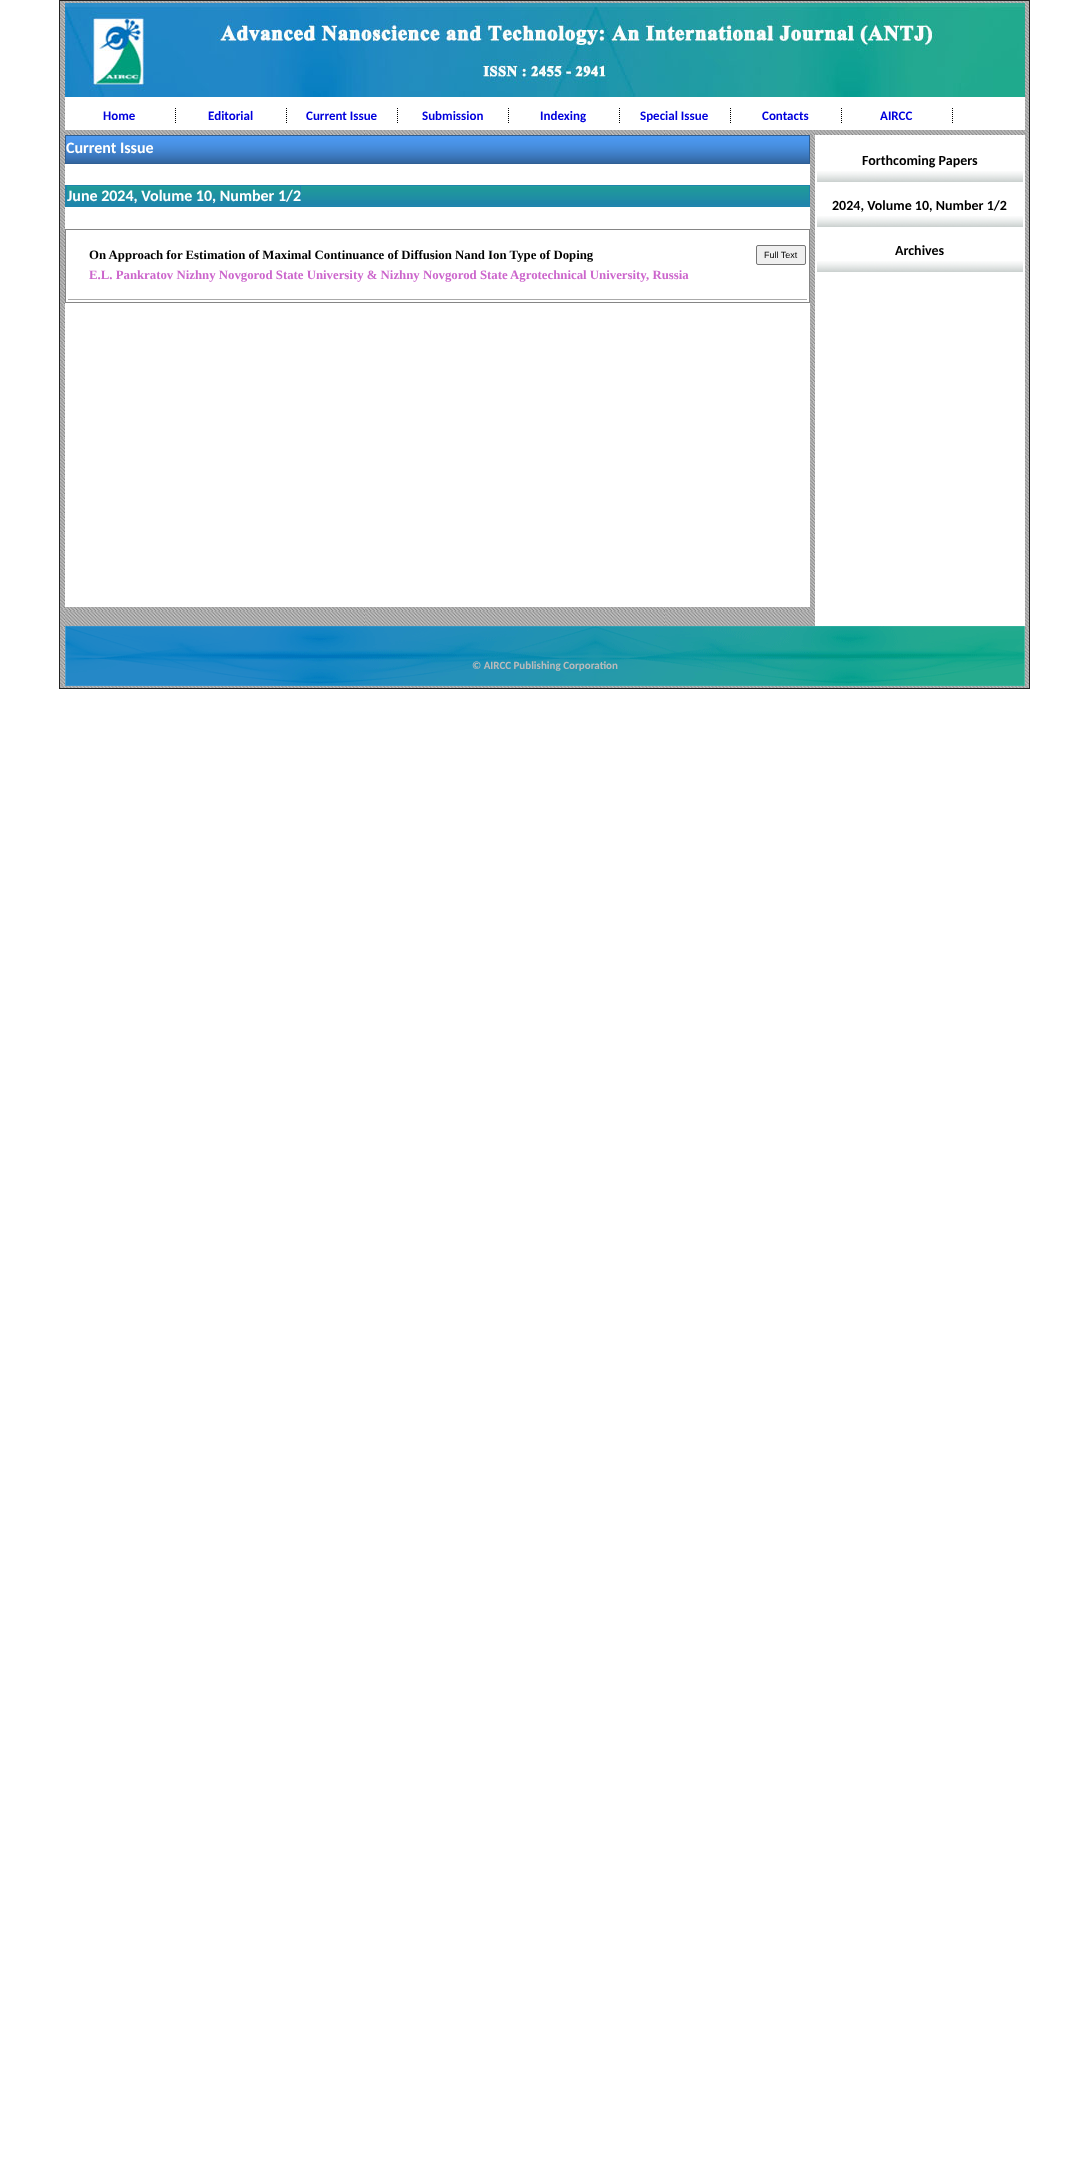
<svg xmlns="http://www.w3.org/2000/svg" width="1089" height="2174">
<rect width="100%" height="100%" fill="#fff"/>
<image x="60" y="1" width="969" height="687" href="media/1.png"/>
<rect x="59.5" y="0.5" width="970" height="688" fill="none" stroke="#222"/>
<image x="65" y="130" width="750" height="496" href="media/2.png"/>
<rect x="65" y="97" width="960" height="33" fill="#fff"/>
<image x="65" y="3" width="960" height="94" href="media/3.png"/>
<path d="M175.5 108v15" fill="none" stroke="#000" stroke-dasharray="1 1"/>
<text x="103" y="120" style="font-family:Carlito;font-size:13px;font-weight:bold;fill:#00d">Home</text>
<path d="M286.5 108v15" fill="none" stroke="#000" stroke-dasharray="1 1"/>
<text x="208" y="120" style="font-family:Carlito;font-size:13px;font-weight:bold;fill:#00d">Editorial</text>
<path d="M397.5 108v15" fill="none" stroke="#000" stroke-dasharray="1 1"/>
<text x="306" y="120" style="font-family:Carlito;font-size:13px;font-weight:bold;fill:#00d">Current Issue</text>
<path d="M508.5 108v15" fill="none" stroke="#000" stroke-dasharray="1 1"/>
<text x="422" y="120" style="font-family:Carlito;font-size:13px;font-weight:bold;fill:#00d">Submission</text>
<path d="M619.5 108v15" fill="none" stroke="#000" stroke-dasharray="1 1"/>
<text x="540" y="120" style="font-family:Carlito;font-size:13px;font-weight:bold;fill:#00d">Indexing</text>
<path d="M730.5 108v15" fill="none" stroke="#000" stroke-dasharray="1 1"/>
<text x="640" y="120" style="font-family:Carlito;font-size:13px;font-weight:bold;fill:#00d">Special Issue</text>
<path d="M841.5 108v15" fill="none" stroke="#000" stroke-dasharray="1 1"/>
<text x="762" y="120" style="font-family:Carlito;font-size:13px;font-weight:bold;fill:#00d">Contacts</text>
<path d="M952.5 108v15" fill="none" stroke="#000" stroke-dasharray="1 1"/>
<text x="880" y="120" style="font-family:Carlito;font-size:13px;font-weight:bold;fill:#00d">AIRCC</text>
<rect x="65" y="164" width="745" height="443" fill="#fff"/>
<image x="65" y="130" width="745" height="5" href="media/4.png"/>
<image x="66" y="136" width="743" height="27" href="media/5.png"/>
<rect x="65.5" y="135.5" width="744" height="28" fill="none" stroke="#2f5f94"/>
<text x="66" y="153" style="font-family:Carlito;font-size:16px;font-weight:bold;fill:#fff">Current Issue</text>
<image x="67" y="186" width="742" height="20" href="media/6.png"/>
<rect x="65.5" y="185.5" width="744" height="21" fill="none" stroke="#1e85ac"/>
<rect x="66.5" y="185.5" width="234" height="20" fill="none" stroke="#1e85ac"/>
<text x="67" y="201" style="font-family:Carlito;font-size:16px;font-weight:bold;fill:#fff">June 2024, Volume 10, Number 1/2</text>
<rect x="65.5" y="229.5" width="744" height="73" fill="none" stroke="#858585"/>
<rect x="68" y="299" width="739" height="1" fill="#aaa"/>
<text x="89" y="259" style="font-family:Liberation Serif;font-size:12.8px;font-weight:bold;fill:#000">On Approach for Estimation of Maximal Continuance of Diffusion Nand Ion Type of Doping</text>
<rect x="756.5" y="245.5" width="49" height="19" rx="1.5" fill="#efefef" stroke="#767676"/>
<text x="764" y="258" style="font-family:Liberation Sans;font-size:9px;fill:#000">Full Text</text>
<text x="89" y="279" style="font-family:Liberation Serif;font-size:12.8px;font-weight:bold;fill:#c6c">E.L. Pankratov Nizhny Novgorod State University &amp; Nizhny Novgorod State Agrotechnical University, Russia</text>
<rect x="815" y="135" width="210" height="491" fill="#fff"/>
<image x="815" y="130" width="210" height="5" href="media/7.png"/>
<image x="817" y="171" width="206" height="11" href="media/8.png"/>
<text x="862" y="165" style="font-family:Carlito;font-size:14px;font-weight:bold;fill:#000">Forthcoming Papers</text>
<image x="817" y="216" width="206" height="11" href="media/8.png"/>
<text x="832" y="210" style="font-family:Carlito;font-size:14px;font-weight:bold;fill:#000">2024, Volume 10, Number 1/2</text>
<image x="817" y="261" width="206" height="11" href="media/8.png"/>
<text x="895" y="255" style="font-family:Carlito;font-size:14px;font-weight:bold;fill:#000">Archives</text>
<image x="65" y="626" width="960" height="60" href="media/9.png"/>
<text x="472" y="669" style="font-family:Carlito;font-size:11px;font-weight:bold;fill:#bbb">© AIRCC Publishing Corporation</text>
</svg>
